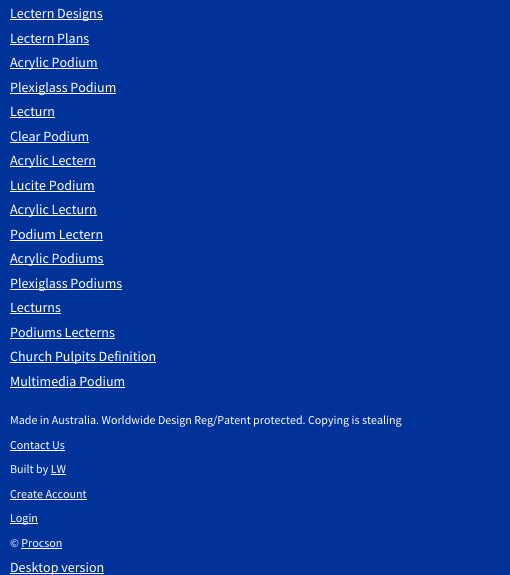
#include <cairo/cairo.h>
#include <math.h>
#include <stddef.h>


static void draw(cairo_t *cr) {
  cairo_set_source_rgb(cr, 0, 51 / 255.0, 153 / 255.0);
  cairo_paint(cr);
  cairo_set_source_rgb(cr, 1, 1, 1);
  cairo_rectangle(cr, 10, 19, 93, 1);
  cairo_fill(cr);
  cairo_rectangle(cr, 10, 44, 79, 1);
  cairo_fill(cr);
  cairo_rectangle(cr, 10, 68, 88, 1);
  cairo_fill(cr);
  cairo_rectangle(cr, 10, 93, 106, 1);
  cairo_fill(cr);
  cairo_rectangle(cr, 10, 117, 45, 1);
  cairo_fill(cr);
  cairo_rectangle(cr, 10, 142, 79, 1);
  cairo_fill(cr);
  cairo_rectangle(cr, 10, 166, 86, 1);
  cairo_fill(cr);
  cairo_rectangle(cr, 10, 191, 85, 1);
  cairo_fill(cr);
  cairo_rectangle(cr, 10, 215, 87, 1);
  cairo_fill(cr);
  cairo_rectangle(cr, 10, 240, 93, 1);
  cairo_fill(cr);
  cairo_rectangle(cr, 10, 264, 94, 1);
  cairo_fill(cr);
  cairo_rectangle(cr, 10, 289, 112, 1);
  cairo_fill(cr);
  cairo_rectangle(cr, 10, 313, 51, 1);
  cairo_fill(cr);
  cairo_rectangle(cr, 10, 338, 105, 1);
  cairo_fill(cr);
  cairo_rectangle(cr, 10, 362, 146, 1);
  cairo_fill(cr);
  cairo_rectangle(cr, 10, 387, 115, 1);
  cairo_fill(cr);
  cairo_rectangle(cr, 10, 450, 55, 1);
  cairo_fill(cr);
  cairo_rectangle(cr, 51, 474, 15, 1);
  cairo_fill(cr);
  cairo_rectangle(cr, 10, 499, 77, 1);
  cairo_fill(cr);
  cairo_rectangle(cr, 10, 523, 28, 1);
  cairo_fill(cr);
  cairo_rectangle(cr, 21, 548, 41, 1);
  cairo_fill(cr);
  cairo_rectangle(cr, 10, 573, 94, 1);
  cairo_fill(cr);
  cairo_select_font_face(cr, "Source Sans Pro", CAIRO_FONT_SLANT_NORMAL, CAIRO_FONT_WEIGHT_NORMAL);
  cairo_set_font_size(cr, 14);
  cairo_move_to(cr, 10, 18);
  cairo_show_text(cr, "Lectern Designs");
  cairo_move_to(cr, 10, 43);
  cairo_show_text(cr, "Lectern Plans");
  cairo_move_to(cr, 10, 67);
  cairo_show_text(cr, "Acrylic Podium");
  cairo_move_to(cr, 10, 92);
  cairo_show_text(cr, "Plexiglass Podium");
  cairo_move_to(cr, 10, 116);
  cairo_show_text(cr, "Lecturn");
  cairo_move_to(cr, 10, 141);
  cairo_show_text(cr, "Clear Podium");
  cairo_move_to(cr, 10, 165);
  cairo_show_text(cr, "Acrylic Lectern");
  cairo_move_to(cr, 10, 190);
  cairo_show_text(cr, "Lucite Podium");
  cairo_move_to(cr, 10, 214);
  cairo_show_text(cr, "Acrylic Lecturn");
  cairo_move_to(cr, 10, 239);
  cairo_show_text(cr, "Podium Lectern");
  cairo_move_to(cr, 10, 263);
  cairo_show_text(cr, "Acrylic Podiums");
  cairo_move_to(cr, 10, 288);
  cairo_show_text(cr, "Plexiglass Podiums");
  cairo_move_to(cr, 10, 312);
  cairo_show_text(cr, "Lecturns");
  cairo_move_to(cr, 10, 337);
  cairo_show_text(cr, "Podiums Lecterns");
  cairo_move_to(cr, 10, 361);
  cairo_show_text(cr, "Church Pulpits Definition");
  cairo_move_to(cr, 10, 386);
  cairo_show_text(cr, "Multimedia Podium");
  cairo_set_font_size(cr, 12);
  cairo_move_to(cr, 10, 424);
  cairo_show_text(cr, "Made in Australia. Worldwide Design Reg/Patent protected. Copying is stealing");
  cairo_move_to(cr, 10, 449);
  cairo_show_text(cr, "Contact Us");
  cairo_move_to(cr, 10, 473);
  cairo_show_text(cr, "Built by LW");
  cairo_move_to(cr, 10, 498);
  cairo_show_text(cr, "Create Account");
  cairo_move_to(cr, 10, 522);
  cairo_show_text(cr, "Login");
  cairo_move_to(cr, 10, 547);
  cairo_show_text(cr, "© Procson");
  cairo_set_font_size(cr, 14);
  cairo_move_to(cr, 10, 572);
  cairo_show_text(cr, "Desktop version");
}

int main(void) {
  cairo_surface_t *surface = cairo_image_surface_create(CAIRO_FORMAT_RGB24, 510, 575);
  cairo_t *cr = cairo_create(surface);
  cairo_font_options_t *options = cairo_font_options_create();
  cairo_font_options_set_hint_metrics(options, CAIRO_HINT_METRICS_OFF);
  cairo_font_options_set_hint_style(options, CAIRO_HINT_STYLE_NONE);
  cairo_set_font_options(cr, options);
  cairo_set_miter_limit(cr, 4);
  draw(cr);
  cairo_surface_write_to_png(surface, "out.png");
  cairo_font_options_destroy(options);
  cairo_destroy(cr);
  cairo_surface_destroy(surface);
  return 0;
}
